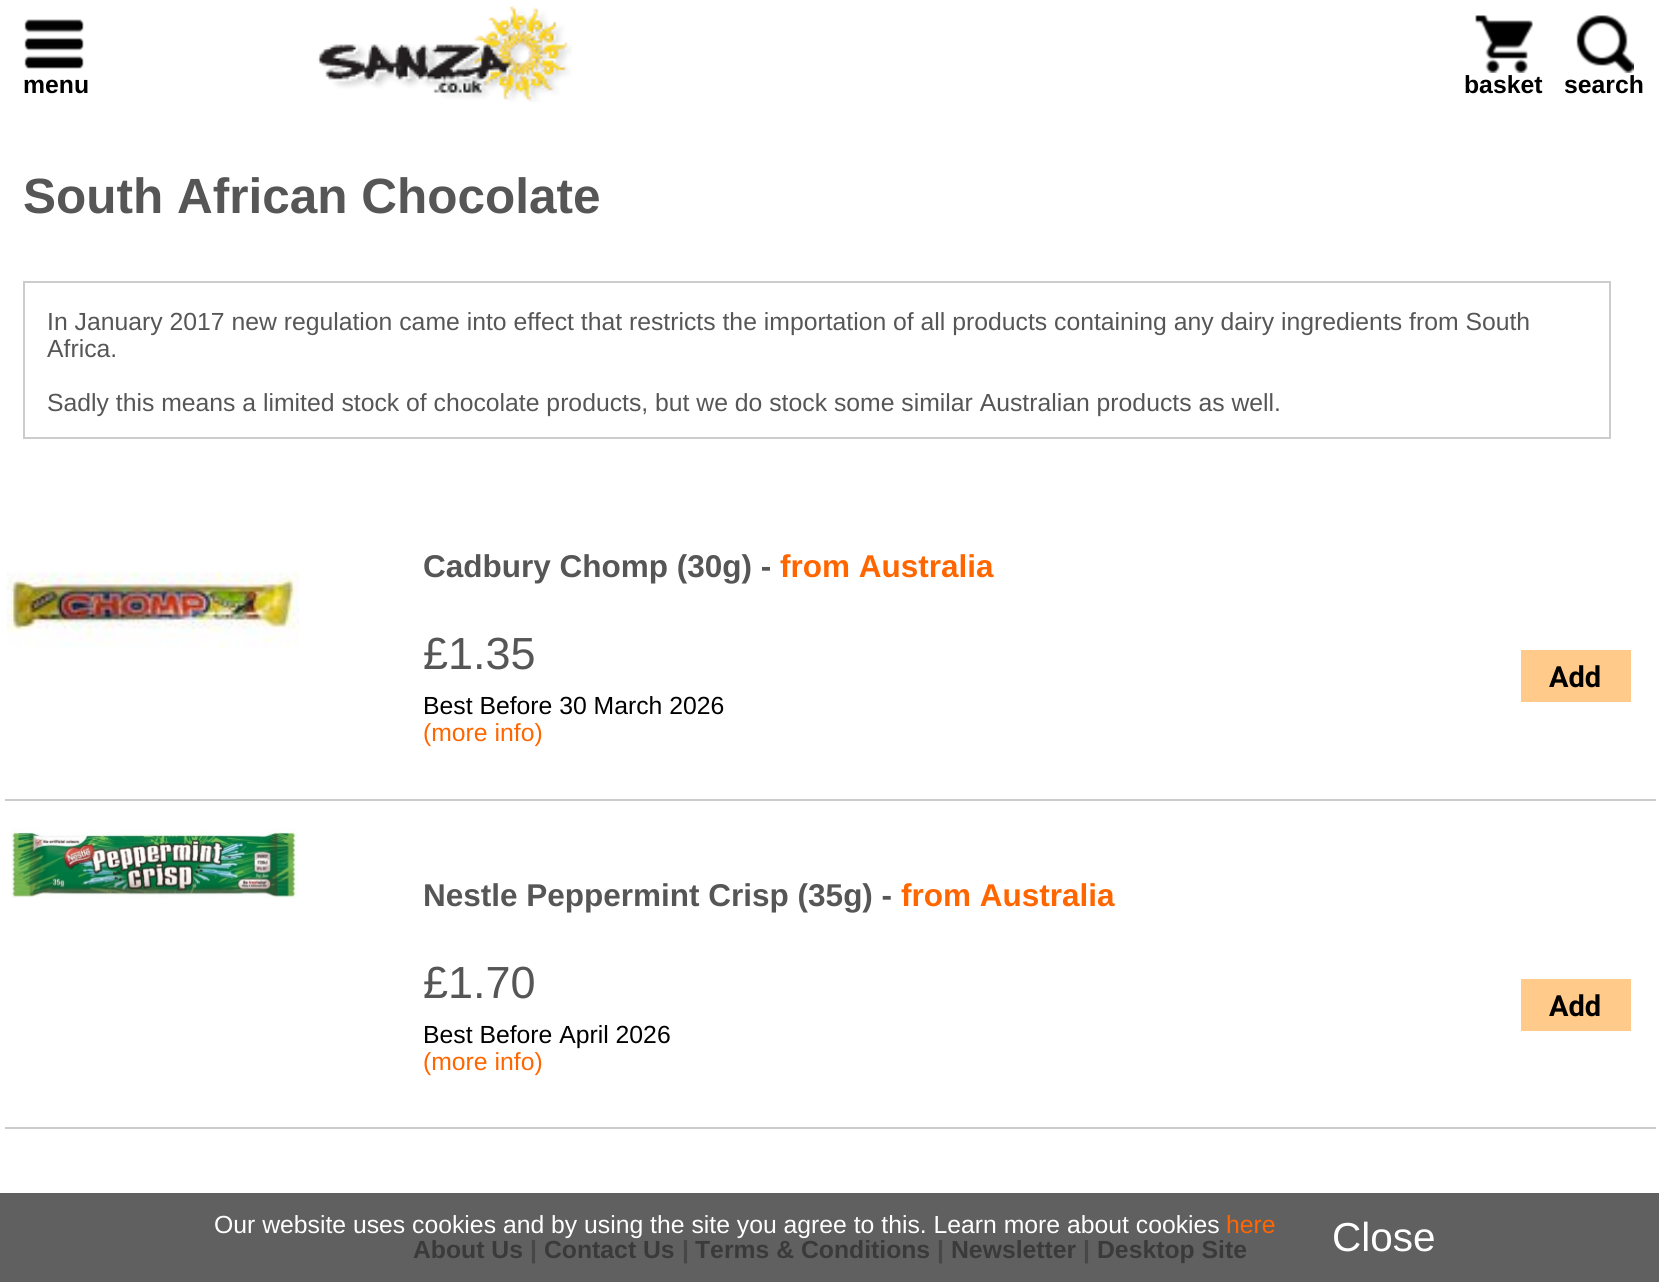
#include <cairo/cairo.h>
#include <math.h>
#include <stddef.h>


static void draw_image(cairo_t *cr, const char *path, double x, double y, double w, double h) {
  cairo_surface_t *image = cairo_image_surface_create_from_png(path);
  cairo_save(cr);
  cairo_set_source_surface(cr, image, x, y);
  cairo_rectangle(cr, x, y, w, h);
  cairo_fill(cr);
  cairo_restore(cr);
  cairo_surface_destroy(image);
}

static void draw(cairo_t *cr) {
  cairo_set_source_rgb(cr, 1, 1, 1);
  cairo_paint(cr);
  cairo_set_source_rgb(cr, 96 / 255.0, 96 / 255.0, 96 / 255.0);
  cairo_rectangle(cr, 0, 1193, 1659, 89);
  cairo_fill(cr);
  draw_image(cr, "images/1.png", 24, 19, 60, 50);
  draw_image(cr, "images/2.png", 317, 6, 255, 96);
  draw_image(cr, "images/3.png", 1475, 15, 58, 58);
  draw_image(cr, "images/4.png", 1576, 15, 58, 58);
  cairo_rectangle(cr, 24, 282, 1586, 156);
  cairo_set_source_rgb(cr, 204 / 255.0, 204 / 255.0, 204 / 255.0);
  cairo_stroke(cr);
  draw_image(cr, "images/5.png", 6, 571, 294, 77);
  cairo_set_source_rgb(cr, 1, 202 / 255.0, 138 / 255.0);
  cairo_rectangle(cr, 1521, 650, 110, 52);
  cairo_fill(cr);
  cairo_set_source_rgb(cr, 204 / 255.0, 204 / 255.0, 204 / 255.0);
  cairo_rectangle(cr, 5, 799, 1651, 2);
  cairo_fill(cr);
  draw_image(cr, "images/6.png", 10, 828, 289, 71);
  cairo_set_source_rgb(cr, 1, 202 / 255.0, 138 / 255.0);
  cairo_rectangle(cr, 1521, 979, 110, 52);
  cairo_fill(cr);
  cairo_set_source_rgb(cr, 204 / 255.0, 204 / 255.0, 204 / 255.0);
  cairo_rectangle(cr, 5, 1127, 1651, 2);
  cairo_fill(cr);
  cairo_select_font_face(cr, "Liberation Sans", CAIRO_FONT_SLANT_NORMAL, CAIRO_FONT_WEIGHT_BOLD);
  cairo_set_font_size(cr, 24.75);
  cairo_set_source_rgb(cr, 0, 0, 0);
  cairo_move_to(cr, 23, 93);
  cairo_show_text(cr, "menu");
  cairo_move_to(cr, 1464, 93);
  cairo_show_text(cr, "basket");
  cairo_move_to(cr, 1564, 93);
  cairo_show_text(cr, "search");
  cairo_set_font_size(cr, 49.5);
  cairo_set_source_rgb(cr, 86 / 255.0, 86 / 255.0, 86 / 255.0);
  cairo_move_to(cr, 23, 213);
  cairo_show_text(cr, "South African Chocolate");
  cairo_select_font_face(cr, "Liberation Sans", CAIRO_FONT_SLANT_NORMAL, CAIRO_FONT_WEIGHT_NORMAL);
  cairo_set_font_size(cr, 24.75);
  cairo_move_to(cr, 47, 330);
  cairo_show_text(cr, "In January 2017 new regulation came into effect that restricts the importation of all products containing any dairy ingredients from South");
  cairo_move_to(cr, 47, 357);
  cairo_show_text(cr, "Africa.");
  cairo_move_to(cr, 47, 411);
  cairo_show_text(cr, "Sadly this means a limited stock of chocolate products, but we do stock some similar Australian products as well.");
  cairo_select_font_face(cr, "Liberation Sans", CAIRO_FONT_SLANT_NORMAL, CAIRO_FONT_WEIGHT_BOLD);
  cairo_set_font_size(cr, 31.5);
  cairo_move_to(cr, 423, 577);
  cairo_show_text(cr, "Cadbury Chomp (30g) -");
  cairo_set_source_rgb(cr, 1, 102 / 255.0, 0);
  cairo_move_to(cr, 780, 577);
  cairo_show_text(cr, "from Australia");
  cairo_select_font_face(cr, "Liberation Sans", CAIRO_FONT_SLANT_NORMAL, CAIRO_FONT_WEIGHT_NORMAL);
  cairo_set_font_size(cr, 45);
  cairo_set_source_rgb(cr, 86 / 255.0, 86 / 255.0, 86 / 255.0);
  cairo_move_to(cr, 423, 669);
  cairo_show_text(cr, "£1.35");
  cairo_set_font_size(cr, 24.75);
  cairo_set_source_rgb(cr, 0, 0, 0);
  cairo_move_to(cr, 423, 714);
  cairo_show_text(cr, "Best Before 30 March 2026");
  cairo_set_source_rgb(cr, 1, 102 / 255.0, 0);
  cairo_move_to(cr, 423, 741);
  cairo_show_text(cr, "(more info)");
  cairo_select_font_face(cr, "Roboto", CAIRO_FONT_SLANT_NORMAL, CAIRO_FONT_WEIGHT_BOLD);
  cairo_set_font_size(cr, 29);
  cairo_set_source_rgb(cr, 0, 0, 0);
  cairo_move_to(cr, 1549, 687);
  cairo_show_text(cr, "Add");
  cairo_select_font_face(cr, "Liberation Sans", CAIRO_FONT_SLANT_NORMAL, CAIRO_FONT_WEIGHT_BOLD);
  cairo_set_font_size(cr, 31.5);
  cairo_set_source_rgb(cr, 86 / 255.0, 86 / 255.0, 86 / 255.0);
  cairo_move_to(cr, 423, 906);
  cairo_show_text(cr, "Nestle Peppermint Crisp (35g) -");
  cairo_set_source_rgb(cr, 1, 102 / 255.0, 0);
  cairo_move_to(cr, 901, 906);
  cairo_show_text(cr, "from Australia");
  cairo_select_font_face(cr, "Liberation Sans", CAIRO_FONT_SLANT_NORMAL, CAIRO_FONT_WEIGHT_NORMAL);
  cairo_set_font_size(cr, 45);
  cairo_set_source_rgb(cr, 86 / 255.0, 86 / 255.0, 86 / 255.0);
  cairo_move_to(cr, 423, 998);
  cairo_show_text(cr, "£1.70");
  cairo_set_font_size(cr, 24.75);
  cairo_set_source_rgb(cr, 0, 0, 0);
  cairo_move_to(cr, 423, 1043);
  cairo_show_text(cr, "Best Before April 2026");
  cairo_set_source_rgb(cr, 1, 102 / 255.0, 0);
  cairo_move_to(cr, 423, 1070);
  cairo_show_text(cr, "(more info)");
  cairo_select_font_face(cr, "Roboto", CAIRO_FONT_SLANT_NORMAL, CAIRO_FONT_WEIGHT_BOLD);
  cairo_set_font_size(cr, 29);
  cairo_set_source_rgb(cr, 0, 0, 0);
  cairo_move_to(cr, 1549, 1016);
  cairo_show_text(cr, "Add");
  cairo_select_font_face(cr, "Liberation Sans", CAIRO_FONT_SLANT_NORMAL, CAIRO_FONT_WEIGHT_BOLD);
  cairo_set_font_size(cr, 24.75);
  cairo_set_source_rgb(cr, 58 / 255.0, 58 / 255.0, 58 / 255.0);
  cairo_move_to(cr, 413, 1258);
  cairo_show_text(cr, "About Us");
  cairo_set_source_rgb(cr, 71 / 255.0, 71 / 255.0, 71 / 255.0);
  cairo_move_to(cr, 530, 1258);
  cairo_show_text(cr, "|");
  cairo_set_source_rgb(cr, 58 / 255.0, 58 / 255.0, 58 / 255.0);
  cairo_move_to(cr, 544, 1258);
  cairo_show_text(cr, "Contact Us");
  cairo_set_source_rgb(cr, 71 / 255.0, 71 / 255.0, 71 / 255.0);
  cairo_move_to(cr, 682, 1258);
  cairo_show_text(cr, "|");
  cairo_set_source_rgb(cr, 58 / 255.0, 58 / 255.0, 58 / 255.0);
  cairo_move_to(cr, 695, 1258);
  cairo_show_text(cr, "Terms & Conditions");
  cairo_set_source_rgb(cr, 71 / 255.0, 71 / 255.0, 71 / 255.0);
  cairo_move_to(cr, 937, 1258);
  cairo_show_text(cr, "|");
  cairo_set_source_rgb(cr, 58 / 255.0, 58 / 255.0, 58 / 255.0);
  cairo_move_to(cr, 951, 1258);
  cairo_show_text(cr, "Newsletter");
  cairo_set_source_rgb(cr, 71 / 255.0, 71 / 255.0, 71 / 255.0);
  cairo_move_to(cr, 1083, 1258);
  cairo_show_text(cr, "|");
  cairo_set_source_rgb(cr, 58 / 255.0, 58 / 255.0, 58 / 255.0);
  cairo_move_to(cr, 1097, 1258);
  cairo_show_text(cr, "Desktop Site");
  cairo_select_font_face(cr, "Liberation Sans", CAIRO_FONT_SLANT_NORMAL, CAIRO_FONT_WEIGHT_NORMAL);
  cairo_set_source_rgb(cr, 1, 1, 1);
  cairo_move_to(cr, 214, 1233);
  cairo_show_text(cr, "Our website uses cookies and by using the site you agree to this. Learn more about cookies");
  cairo_set_source_rgb(cr, 1, 102 / 255.0, 0);
  cairo_move_to(cr, 1226, 1233);
  cairo_show_text(cr, "here");
  cairo_set_font_size(cr, 40.5);
  cairo_set_source_rgb(cr, 1, 1, 1);
  cairo_move_to(cr, 1332, 1251);
  cairo_show_text(cr, "Close");
}

int main(void) {
  cairo_surface_t *surface = cairo_image_surface_create(CAIRO_FORMAT_RGB24, 1659, 1282);
  cairo_t *cr = cairo_create(surface);
  cairo_font_options_t *options = cairo_font_options_create();
  cairo_font_options_set_hint_metrics(options, CAIRO_HINT_METRICS_OFF);
  cairo_font_options_set_hint_style(options, CAIRO_HINT_STYLE_NONE);
  cairo_set_font_options(cr, options);
  cairo_set_miter_limit(cr, 4);
  draw(cr);
  cairo_surface_write_to_png(surface, "out.png");
  cairo_font_options_destroy(options);
  cairo_destroy(cr);
  cairo_surface_destroy(surface);
  return 0;
}
